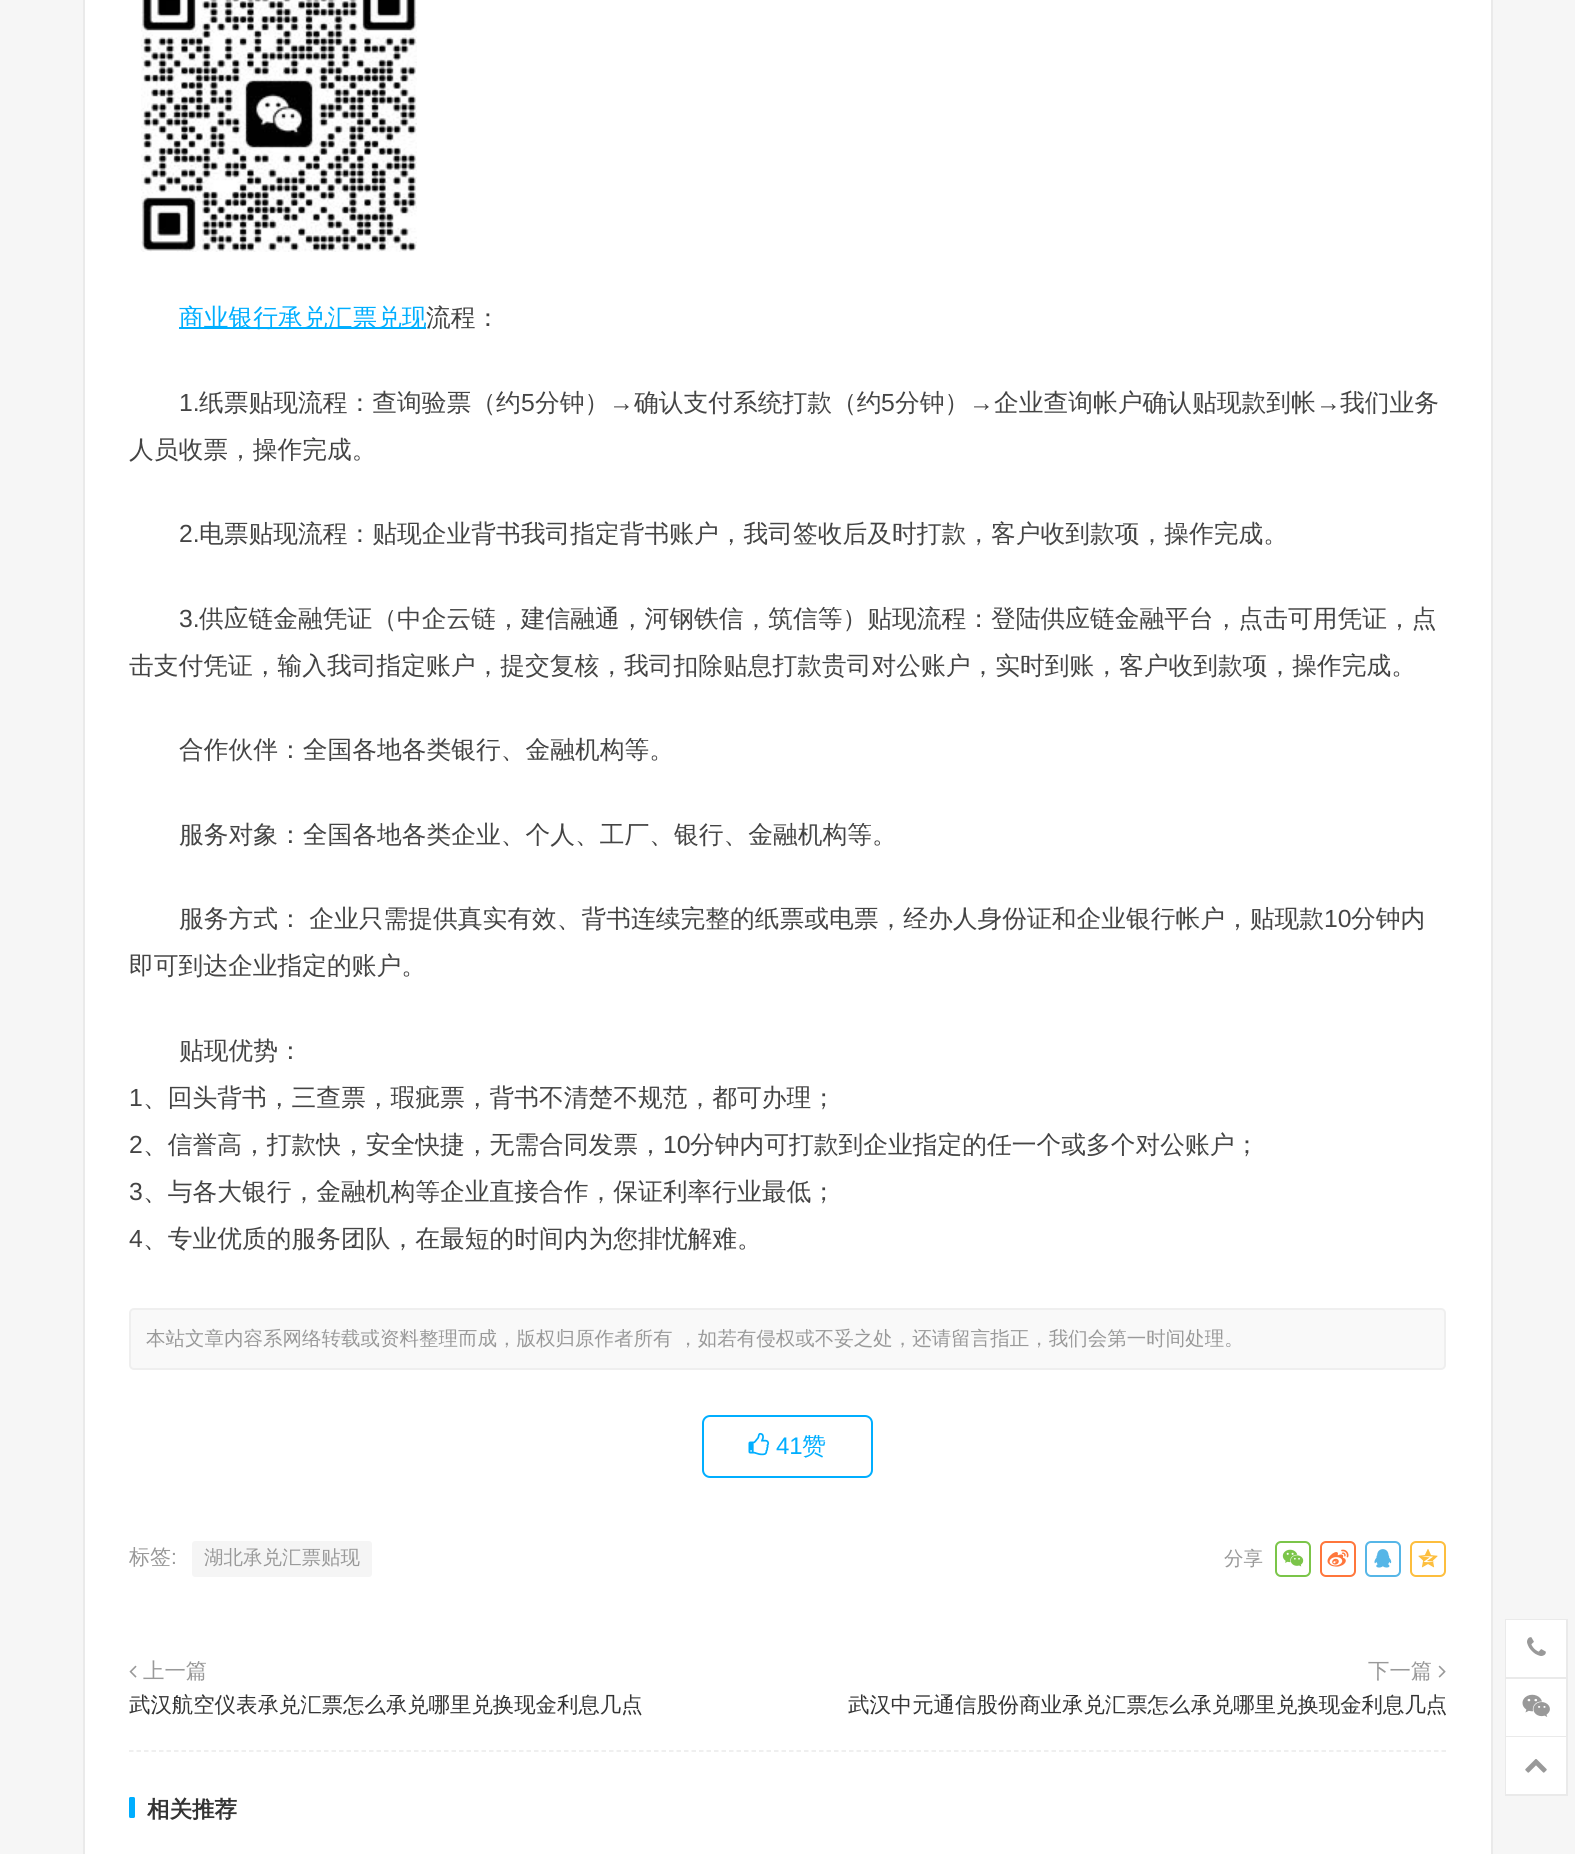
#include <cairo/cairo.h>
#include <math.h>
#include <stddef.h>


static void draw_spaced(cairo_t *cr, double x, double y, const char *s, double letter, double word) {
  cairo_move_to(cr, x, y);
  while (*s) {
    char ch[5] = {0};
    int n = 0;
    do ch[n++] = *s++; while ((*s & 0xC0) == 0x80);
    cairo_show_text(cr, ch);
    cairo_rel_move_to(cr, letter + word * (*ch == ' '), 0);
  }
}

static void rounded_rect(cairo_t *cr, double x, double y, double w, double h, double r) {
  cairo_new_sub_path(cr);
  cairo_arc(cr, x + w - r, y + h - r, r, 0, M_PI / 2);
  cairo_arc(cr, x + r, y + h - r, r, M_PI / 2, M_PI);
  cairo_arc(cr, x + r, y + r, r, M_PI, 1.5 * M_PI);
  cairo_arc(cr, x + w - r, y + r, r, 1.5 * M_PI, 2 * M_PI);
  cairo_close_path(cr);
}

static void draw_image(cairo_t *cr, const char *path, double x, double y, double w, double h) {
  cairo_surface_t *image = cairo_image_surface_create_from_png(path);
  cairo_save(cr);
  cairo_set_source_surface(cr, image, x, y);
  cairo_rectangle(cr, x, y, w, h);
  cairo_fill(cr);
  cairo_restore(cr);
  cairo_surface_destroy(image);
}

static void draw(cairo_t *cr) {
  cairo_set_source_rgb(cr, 246 / 255.0, 246 / 255.0, 246 / 255.0);
  cairo_paint(cr);
  cairo_set_source_rgb(cr, 1, 1, 1);
  cairo_rectangle(cr, 84, -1, 1408, 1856);
  cairo_fill_preserve(cr);
  cairo_set_source_rgb(cr, 234 / 255.0, 234 / 255.0, 234 / 255.0);
  cairo_stroke(cr);
  draw_image(cr, "images/1.png", 141, 0, 276, 252);
  cairo_set_source_rgb(cr, 0, 174 / 255.0, 1);
  cairo_rectangle(cr, 179, 327, 247, 2);
  cairo_fill(cr);
  cairo_set_source_rgb(cr, 249 / 255.0, 249 / 255.0, 249 / 255.0);
  rounded_rect(cr, 130, 1309, 1315, 60, 4);
  cairo_fill_preserve(cr);
  cairo_set_source_rgb(cr, 239 / 255.0, 239 / 255.0, 239 / 255.0);
  cairo_stroke(cr);
  rounded_rect(cr, 703, 1416, 169, 61, 7);
  cairo_set_source_rgb(cr, 0, 174 / 255.0, 1);
  cairo_stroke(cr);
  draw_image(cr, "images/2.png", 748, 1432, 22, 24);
  cairo_set_source_rgb(cr, 245 / 255.0, 245 / 255.0, 245 / 255.0);
  rounded_rect(cr, 192, 1541, 180, 36, 3);
  cairo_fill(cr);
  rounded_rect(cr, 1276, 1542, 34, 34, 5);
  cairo_set_source_rgb(cr, 123 / 255.0, 197 / 255.0, 73 / 255.0);
  cairo_stroke(cr);
  draw_image(cr, "images/3.png", 1282, 1549, 22, 18);
  rounded_rect(cr, 1321, 1542, 34, 34, 5);
  cairo_set_source_rgb(cr, 1, 118 / 255.0, 59 / 255.0);
  cairo_stroke(cr);
  draw_image(cr, "images/4.png", 1327, 1549, 22, 18);
  rounded_rect(cr, 1366, 1542, 34, 34, 5);
  cairo_set_source_rgb(cr, 86 / 255.0, 182 / 255.0, 231 / 255.0);
  cairo_stroke(cr);
  draw_image(cr, "images/5.png", 1374, 1549, 18, 19);
  rounded_rect(cr, 1411, 1542, 34, 34, 5);
  cairo_set_source_rgb(cr, 253 / 255.0, 190 / 255.0, 61 / 255.0);
  cairo_stroke(cr);
  draw_image(cr, "images/6.png", 1418, 1549, 20, 19);
  draw_image(cr, "images/7.png", 129, 1665, 8, 13);
  draw_image(cr, "images/8.png", 1438, 1665, 8, 13);
  cairo_new_path(cr);
  cairo_move_to(cr, 129, 1751);
  cairo_line_to(cr, 1446, 1751);
  cairo_set_source_rgb(cr, 234 / 255.0, 234 / 255.0, 234 / 255.0);
  cairo_set_line_width(cr, 1.5);
  cairo_set_dash(cr, (double[]){4.5, 3}, 2, 0);
  cairo_stroke(cr);
  cairo_set_source_rgb(cr, 0, 174 / 255.0, 1);
  rounded_rect(cr, 129, 1797, 6, 21, 1.5);
  cairo_fill(cr);
  cairo_rectangle(cr, 1506, 1620, 61, 58);
  cairo_set_source_rgb(cr, 234 / 255.0, 234 / 255.0, 234 / 255.0);
  cairo_set_line_width(cr, 2);
  cairo_set_dash(cr, NULL, 0, 0);
  cairo_stroke(cr);
  cairo_set_source_rgb(cr, 1, 1, 1);
  cairo_rectangle(cr, 1506, 1620, 60, 57);
  cairo_fill(cr);
  draw_image(cr, "images/9.png", 1527, 1637, 19, 19);
  cairo_rectangle(cr, 1506, 1737, 61, 58);
  cairo_set_source_rgb(cr, 234 / 255.0, 234 / 255.0, 234 / 255.0);
  cairo_stroke(cr);
  cairo_rectangle(cr, 1506, 1678, 61, 58);
  cairo_stroke(cr);
  cairo_set_source_rgb(cr, 1, 1, 1);
  cairo_rectangle(cr, 1506, 1679, 60, 57);
  cairo_fill(cr);
  draw_image(cr, "images/10.png", 1522, 1694, 28, 23);
  cairo_rectangle(cr, 1506, 1737, 60, 57);
  cairo_fill(cr);
  draw_image(cr, "images/11.png", 1525, 1759, 22, 14);
  cairo_select_font_face(cr, "WenQuanYi Zen Hei Medium", CAIRO_FONT_SLANT_NORMAL, CAIRO_FONT_WEIGHT_NORMAL);
  cairo_set_font_size(cr, 24.75);
  cairo_set_source_rgb(cr, 0, 174 / 255.0, 1);
  cairo_move_to(cr, 179, 326);
  cairo_show_text(cr, "商业银行承兑汇票兑现");
  cairo_set_source_rgb(cr, 68 / 255.0, 68 / 255.0, 68 / 255.0);
  cairo_move_to(cr, 426, 326);
  cairo_show_text(cr, "流程：");
  cairo_select_font_face(cr, "Liberation Sans", CAIRO_FONT_SLANT_NORMAL, CAIRO_FONT_WEIGHT_NORMAL);
  cairo_move_to(cr, 179, 411);
  cairo_show_text(cr, "1.");
  cairo_select_font_face(cr, "WenQuanYi Zen Hei Medium", CAIRO_FONT_SLANT_NORMAL, CAIRO_FONT_WEIGHT_NORMAL);
  cairo_move_to(cr, 199, 411);
  cairo_show_text(cr, "纸票贴现流程：查询验票（约");
  cairo_select_font_face(cr, "Liberation Sans", CAIRO_FONT_SLANT_NORMAL, CAIRO_FONT_WEIGHT_NORMAL);
  cairo_move_to(cr, 521, 411);
  cairo_show_text(cr, "5");
  cairo_select_font_face(cr, "WenQuanYi Zen Hei Medium", CAIRO_FONT_SLANT_NORMAL, CAIRO_FONT_WEIGHT_NORMAL);
  cairo_move_to(cr, 535, 411);
  cairo_show_text(cr, "分钟）");
  cairo_select_font_face(cr, "Liberation Sans", CAIRO_FONT_SLANT_NORMAL, CAIRO_FONT_WEIGHT_NORMAL);
  cairo_move_to(cr, 609, 411);
  cairo_show_text(cr, "→");
  cairo_select_font_face(cr, "WenQuanYi Zen Hei Medium", CAIRO_FONT_SLANT_NORMAL, CAIRO_FONT_WEIGHT_NORMAL);
  cairo_move_to(cr, 634, 411);
  cairo_show_text(cr, "确认支付系统打款（约");
  cairo_select_font_face(cr, "Liberation Sans", CAIRO_FONT_SLANT_NORMAL, CAIRO_FONT_WEIGHT_NORMAL);
  cairo_move_to(cr, 881, 411);
  cairo_show_text(cr, "5");
  cairo_select_font_face(cr, "WenQuanYi Zen Hei Medium", CAIRO_FONT_SLANT_NORMAL, CAIRO_FONT_WEIGHT_NORMAL);
  cairo_move_to(cr, 895, 411);
  cairo_show_text(cr, "分钟）");
  cairo_select_font_face(cr, "Liberation Sans", CAIRO_FONT_SLANT_NORMAL, CAIRO_FONT_WEIGHT_NORMAL);
  cairo_move_to(cr, 969, 411);
  cairo_show_text(cr, "→");
  cairo_select_font_face(cr, "WenQuanYi Zen Hei Medium", CAIRO_FONT_SLANT_NORMAL, CAIRO_FONT_WEIGHT_NORMAL);
  cairo_move_to(cr, 994, 411);
  cairo_show_text(cr, "企业查询帐户确认贴现款到帐");
  cairo_select_font_face(cr, "Liberation Sans", CAIRO_FONT_SLANT_NORMAL, CAIRO_FONT_WEIGHT_NORMAL);
  cairo_move_to(cr, 1316, 411);
  cairo_show_text(cr, "→");
  cairo_select_font_face(cr, "WenQuanYi Zen Hei Medium", CAIRO_FONT_SLANT_NORMAL, CAIRO_FONT_WEIGHT_NORMAL);
  cairo_move_to(cr, 1340, 411);
  cairo_show_text(cr, "我们业务");
  cairo_move_to(cr, 129, 458);
  cairo_show_text(cr, "人员收票，操作完成。");
  cairo_select_font_face(cr, "Liberation Sans", CAIRO_FONT_SLANT_NORMAL, CAIRO_FONT_WEIGHT_NORMAL);
  cairo_move_to(cr, 179, 542);
  cairo_show_text(cr, "2.");
  cairo_select_font_face(cr, "WenQuanYi Zen Hei Medium", CAIRO_FONT_SLANT_NORMAL, CAIRO_FONT_WEIGHT_NORMAL);
  cairo_move_to(cr, 199, 542);
  cairo_show_text(cr, "电票贴现流程：贴现企业背书我司指定背书账户，我司签收后及时打款，客户收到款项，操作完成。");
  cairo_select_font_face(cr, "Liberation Sans", CAIRO_FONT_SLANT_NORMAL, CAIRO_FONT_WEIGHT_NORMAL);
  cairo_move_to(cr, 179, 627);
  cairo_show_text(cr, "3.");
  cairo_select_font_face(cr, "WenQuanYi Zen Hei Medium", CAIRO_FONT_SLANT_NORMAL, CAIRO_FONT_WEIGHT_NORMAL);
  cairo_move_to(cr, 199, 627);
  cairo_show_text(cr, "供应链金融凭证（中企云链，建信融通，河钢铁信，筑信等）贴现流程：登陆供应链金融平台，点击可用凭证，点");
  cairo_move_to(cr, 129, 674);
  cairo_show_text(cr, "击支付凭证，输入我司指定账户，提交复核，我司扣除贴息打款贵司对公账户，实时到账，客户收到款项，操作完成。");
  cairo_move_to(cr, 179, 758);
  cairo_show_text(cr, "合作伙伴：全国各地各类银行、金融机构等。");
  cairo_move_to(cr, 179, 843);
  cairo_show_text(cr, "服务对象：全国各地各类企业、个人、工厂、银行、金融机构等。");
  draw_spaced(cr, 179, 927, "服务方式： 企业只需提供真实有效、背书连续完整的纸票或电票，经办人身份证和企业银行帐户，贴现款", 0, -1);
  cairo_select_font_face(cr, "Liberation Sans", CAIRO_FONT_SLANT_NORMAL, CAIRO_FONT_WEIGHT_NORMAL);
  cairo_move_to(cr, 1324, 927);
  cairo_show_text(cr, "10");
  cairo_select_font_face(cr, "WenQuanYi Zen Hei Medium", CAIRO_FONT_SLANT_NORMAL, CAIRO_FONT_WEIGHT_NORMAL);
  cairo_move_to(cr, 1351, 927);
  cairo_show_text(cr, "分钟内");
  cairo_move_to(cr, 129, 974);
  cairo_show_text(cr, "即可到达企业指定的账户。");
  cairo_move_to(cr, 179, 1059);
  cairo_show_text(cr, "贴现优势：");
  cairo_select_font_face(cr, "Liberation Sans", CAIRO_FONT_SLANT_NORMAL, CAIRO_FONT_WEIGHT_NORMAL);
  cairo_move_to(cr, 129, 1106);
  cairo_show_text(cr, "1");
  cairo_select_font_face(cr, "WenQuanYi Zen Hei Medium", CAIRO_FONT_SLANT_NORMAL, CAIRO_FONT_WEIGHT_NORMAL);
  cairo_move_to(cr, 143, 1106);
  cairo_show_text(cr, "、回头背书，三查票，瑕疵票，背书不清楚不规范，都可办理；");
  cairo_select_font_face(cr, "Liberation Sans", CAIRO_FONT_SLANT_NORMAL, CAIRO_FONT_WEIGHT_NORMAL);
  cairo_move_to(cr, 129, 1153);
  cairo_show_text(cr, "2");
  cairo_select_font_face(cr, "WenQuanYi Zen Hei Medium", CAIRO_FONT_SLANT_NORMAL, CAIRO_FONT_WEIGHT_NORMAL);
  cairo_move_to(cr, 143, 1153);
  cairo_show_text(cr, "、信誉高，打款快，安全快捷，无需合同发票，");
  cairo_select_font_face(cr, "Liberation Sans", CAIRO_FONT_SLANT_NORMAL, CAIRO_FONT_WEIGHT_NORMAL);
  cairo_move_to(cr, 663, 1153);
  cairo_show_text(cr, "10");
  cairo_select_font_face(cr, "WenQuanYi Zen Hei Medium", CAIRO_FONT_SLANT_NORMAL, CAIRO_FONT_WEIGHT_NORMAL);
  cairo_move_to(cr, 690, 1153);
  cairo_show_text(cr, "分钟内可打款到企业指定的任一个或多个对公账户；");
  cairo_select_font_face(cr, "Liberation Sans", CAIRO_FONT_SLANT_NORMAL, CAIRO_FONT_WEIGHT_NORMAL);
  cairo_move_to(cr, 129, 1200);
  cairo_show_text(cr, "3");
  cairo_select_font_face(cr, "WenQuanYi Zen Hei Medium", CAIRO_FONT_SLANT_NORMAL, CAIRO_FONT_WEIGHT_NORMAL);
  cairo_move_to(cr, 143, 1200);
  cairo_show_text(cr, "、与各大银行，金融机构等企业直接合作，保证利率行业最低；");
  cairo_select_font_face(cr, "Liberation Sans", CAIRO_FONT_SLANT_NORMAL, CAIRO_FONT_WEIGHT_NORMAL);
  cairo_move_to(cr, 129, 1247);
  cairo_show_text(cr, "4");
  cairo_select_font_face(cr, "WenQuanYi Zen Hei Medium", CAIRO_FONT_SLANT_NORMAL, CAIRO_FONT_WEIGHT_NORMAL);
  cairo_move_to(cr, 143, 1247);
  cairo_show_text(cr, "、专业优质的服务团队，在最短的时间内为您排忧解难。");
  cairo_set_font_size(cr, 19.5);
  cairo_set_source_rgb(cr, 153 / 255.0, 153 / 255.0, 153 / 255.0);
  cairo_move_to(cr, 146, 1345);
  cairo_show_text(cr, "本站文章内容系网络转载或资料整理而成，版权归原作者所有 ，如若有侵权或不妥之处，还请留言指正，我们会第一时间处理。");
  cairo_select_font_face(cr, "Liberation Sans", CAIRO_FONT_SLANT_NORMAL, CAIRO_FONT_WEIGHT_NORMAL);
  cairo_set_font_size(cr, 24);
  cairo_set_source_rgb(cr, 0, 174 / 255.0, 1);
  cairo_move_to(cr, 776, 1454);
  cairo_show_text(cr, "41");
  cairo_select_font_face(cr, "WenQuanYi Zen Hei Medium", CAIRO_FONT_SLANT_NORMAL, CAIRO_FONT_WEIGHT_NORMAL);
  cairo_move_to(cr, 802, 1454);
  cairo_show_text(cr, "赞");
  cairo_set_font_size(cr, 21);
  cairo_set_source_rgb(cr, 153 / 255.0, 153 / 255.0, 153 / 255.0);
  cairo_move_to(cr, 129, 1564);
  cairo_show_text(cr, "标签");
  cairo_select_font_face(cr, "Liberation Sans", CAIRO_FONT_SLANT_NORMAL, CAIRO_FONT_WEIGHT_NORMAL);
  cairo_move_to(cr, 171, 1564);
  cairo_show_text(cr, ":");
  cairo_select_font_face(cr, "WenQuanYi Zen Hei Medium", CAIRO_FONT_SLANT_NORMAL, CAIRO_FONT_WEIGHT_NORMAL);
  cairo_set_font_size(cr, 19.5);
  cairo_move_to(cr, 204, 1564);
  cairo_show_text(cr, "湖北承兑汇票贴现");
  cairo_move_to(cr, 1224, 1565);
  cairo_show_text(cr, "分享");
  cairo_set_font_size(cr, 21.4);
  cairo_move_to(cr, 143, 1678);
  cairo_show_text(cr, "上一篇");
  cairo_set_source_rgb(cr, 51 / 255.0, 51 / 255.0, 51 / 255.0);
  cairo_move_to(cr, 129, 1712);
  cairo_show_text(cr, "武汉航空仪表承兑汇票怎么承兑哪里兑换现金利息几点");
  cairo_set_source_rgb(cr, 153 / 255.0, 153 / 255.0, 153 / 255.0);
  cairo_move_to(cr, 1368, 1678);
  cairo_show_text(cr, "下一篇");
  cairo_set_source_rgb(cr, 51 / 255.0, 51 / 255.0, 51 / 255.0);
  cairo_move_to(cr, 848, 1712);
  cairo_show_text(cr, "武汉中元通信股份商业承兑汇票怎么承兑哪里兑换现金利息几点");
  cairo_select_font_face(cr, "WenQuanYi Zen Hei", CAIRO_FONT_SLANT_NORMAL, CAIRO_FONT_WEIGHT_BOLD);
  cairo_set_font_size(cr, 22.5);
  cairo_move_to(cr, 147, 1817);
  cairo_show_text(cr, "相关推荐");
}

int main(void) {
  cairo_surface_t *surface = cairo_image_surface_create(CAIRO_FORMAT_RGB24, 1575, 1854);
  cairo_t *cr = cairo_create(surface);
  cairo_font_options_t *options = cairo_font_options_create();
  cairo_font_options_set_hint_metrics(options, CAIRO_HINT_METRICS_OFF);
  cairo_font_options_set_hint_style(options, CAIRO_HINT_STYLE_NONE);
  cairo_set_font_options(cr, options);
  cairo_set_miter_limit(cr, 4);
  draw(cr);
  cairo_surface_write_to_png(surface, "out.png");
  cairo_font_options_destroy(options);
  cairo_destroy(cr);
  cairo_surface_destroy(surface);
  return 0;
}
